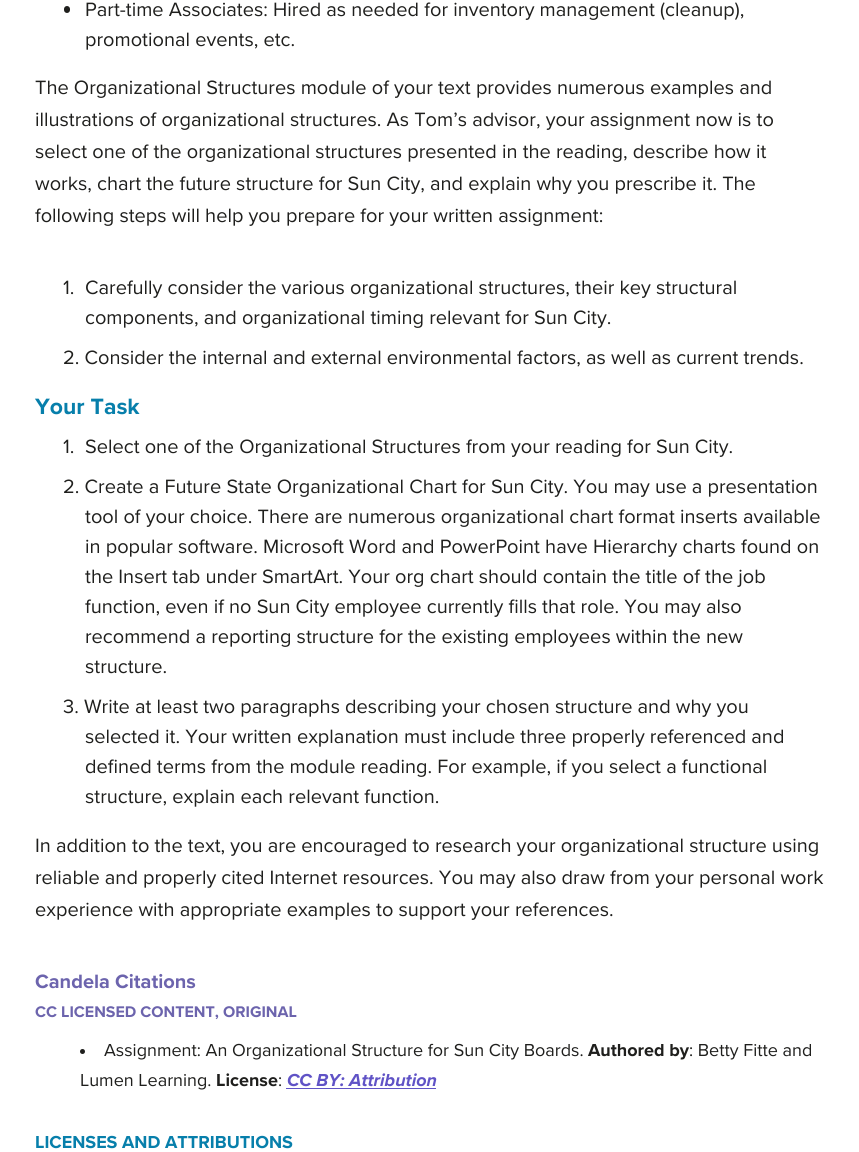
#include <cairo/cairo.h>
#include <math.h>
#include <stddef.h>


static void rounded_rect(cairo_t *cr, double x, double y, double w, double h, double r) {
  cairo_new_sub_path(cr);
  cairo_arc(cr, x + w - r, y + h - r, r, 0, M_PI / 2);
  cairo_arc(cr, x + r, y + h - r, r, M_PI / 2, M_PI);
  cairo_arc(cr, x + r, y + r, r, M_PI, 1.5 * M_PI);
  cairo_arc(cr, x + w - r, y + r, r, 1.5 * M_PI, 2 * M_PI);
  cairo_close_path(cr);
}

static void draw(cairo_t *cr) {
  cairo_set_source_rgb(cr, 1, 1, 1);
  cairo_paint(cr);
  cairo_set_source_rgb(cr, 31 / 255.0, 31 / 255.0, 29 / 255.0);
  rounded_rect(cr, 64, 6, 6, 7, 3);
  cairo_fill(cr);
  cairo_arc(cr, 82.5, 1051.5, 2.5, 0, 2 * M_PI);
  cairo_fill(cr);
  cairo_set_source_rgb(cr, 96 / 255.0, 83 / 255.0, 198 / 255.0);
  cairo_rectangle(cr, 286, 1088, 150, 1);
  cairo_fill(cr);
  cairo_select_font_face(cr, "Proxima Nova", CAIRO_FONT_SLANT_NORMAL, CAIRO_FONT_WEIGHT_NORMAL);
  cairo_set_font_size(cr, 20);
  cairo_set_source_rgb(cr, 31 / 255.0, 31 / 255.0, 29 / 255.0);
  cairo_move_to(cr, 85, 16);
  cairo_show_text(cr, "Part-time Associates: Hired as needed for inventory management (cleanup),");
  cairo_move_to(cr, 85, 46);
  cairo_show_text(cr, "promotional events, etc.");
  cairo_move_to(cr, 35, 94);
  cairo_show_text(cr, "The Organizational Structures module of your text provides numerous examples and");
  cairo_move_to(cr, 35, 126);
  cairo_show_text(cr, "illustrations of organizational structures. As Tom’s advisor, your assignment now is to");
  cairo_move_to(cr, 35, 158);
  cairo_show_text(cr, "select one of the organizational structures presented in the reading, describe how it");
  cairo_move_to(cr, 35, 190);
  cairo_show_text(cr, "works, chart the future structure for Sun City, and explain why you prescribe it. The");
  cairo_move_to(cr, 35, 222);
  cairo_show_text(cr, "following steps will help you prepare for your written assignment:");
  cairo_move_to(cr, 63, 294);
  cairo_show_text(cr, "1.");
  cairo_move_to(cr, 85, 294);
  cairo_show_text(cr, "Carefully consider the various organizational structures, their key structural");
  cairo_move_to(cr, 85, 324);
  cairo_show_text(cr, "components, and organizational timing relevant for Sun City.");
  cairo_move_to(cr, 63, 364);
  cairo_show_text(cr, "2. Consider the internal and external environmental factors, as well as current trends.");
  cairo_select_font_face(cr, "Proxima Nova", CAIRO_FONT_SLANT_NORMAL, CAIRO_FONT_WEIGHT_BOLD);
  cairo_set_font_size(cr, 23);
  cairo_set_source_rgb(cr, 7 / 255.0, 127 / 255.0, 171 / 255.0);
  cairo_move_to(cr, 35, 414);
  cairo_show_text(cr, "Your Task");
  cairo_select_font_face(cr, "Proxima Nova", CAIRO_FONT_SLANT_NORMAL, CAIRO_FONT_WEIGHT_NORMAL);
  cairo_set_font_size(cr, 20);
  cairo_set_source_rgb(cr, 31 / 255.0, 31 / 255.0, 29 / 255.0);
  cairo_move_to(cr, 63, 453);
  cairo_show_text(cr, "1.");
  cairo_move_to(cr, 85, 453);
  cairo_show_text(cr, "Select one of the Organizational Structures from your reading for Sun City.");
  cairo_move_to(cr, 63, 493);
  cairo_show_text(cr, "2. Create a Future State Organizational Chart for Sun City. You may use a presentation");
  cairo_move_to(cr, 85, 523);
  cairo_show_text(cr, "tool of your choice. There are numerous organizational chart format inserts available");
  cairo_move_to(cr, 85, 553);
  cairo_show_text(cr, "in popular software. Microsoft Word and PowerPoint have Hierarchy charts found on");
  cairo_move_to(cr, 85, 583);
  cairo_show_text(cr, "the Insert tab under SmartArt. Your org chart should contain the title of the job");
  cairo_move_to(cr, 85, 613);
  cairo_show_text(cr, "function, even if no Sun City employee currently fills that role. You may also");
  cairo_move_to(cr, 85, 643);
  cairo_show_text(cr, "recommend a reporting structure for the existing employees within the new");
  cairo_move_to(cr, 85, 673);
  cairo_show_text(cr, "structure.");
  cairo_move_to(cr, 63, 713);
  cairo_show_text(cr, "3. Write at least two paragraphs describing your chosen structure and why you");
  cairo_move_to(cr, 85, 743);
  cairo_show_text(cr, "selected it. Your written explanation must include three properly referenced and");
  cairo_move_to(cr, 85, 773);
  cairo_show_text(cr, "defined terms from the module reading. For example, if you select a functional");
  cairo_move_to(cr, 85, 803);
  cairo_show_text(cr, "structure, explain each relevant function.");
  cairo_move_to(cr, 35, 852);
  cairo_show_text(cr, "In addition to the text, you are encouraged to research your organizational structure using");
  cairo_move_to(cr, 35, 884);
  cairo_show_text(cr, "reliable and properly cited Internet resources. You may also draw from your personal work");
  cairo_move_to(cr, 35, 916);
  cairo_show_text(cr, "experience with appropriate examples to support your references.");
  cairo_select_font_face(cr, "Proxima Nova", CAIRO_FONT_SLANT_NORMAL, CAIRO_FONT_WEIGHT_BOLD);
  cairo_set_source_rgb(cr, 108 / 255.0, 100 / 255.0, 173 / 255.0);
  cairo_move_to(cr, 35, 988);
  cairo_show_text(cr, "Candela Citations");
  cairo_set_font_size(cr, 16);
  cairo_move_to(cr, 35, 1017);
  cairo_show_text(cr, "CC LICENSED CONTENT, ORIGINAL");
  cairo_select_font_face(cr, "Proxima Nova", CAIRO_FONT_SLANT_NORMAL, CAIRO_FONT_WEIGHT_NORMAL);
  cairo_set_font_size(cr, 18);
  cairo_set_source_rgb(cr, 31 / 255.0, 31 / 255.0, 29 / 255.0);
  cairo_move_to(cr, 104, 1056);
  cairo_show_text(cr, "Assignment: An Organizational Structure for Sun City Boards.");
  cairo_select_font_face(cr, "Proxima Nova", CAIRO_FONT_SLANT_NORMAL, CAIRO_FONT_WEIGHT_BOLD);
  cairo_move_to(cr, 588, 1056);
  cairo_show_text(cr, "Authored by");
  cairo_select_font_face(cr, "Proxima Nova", CAIRO_FONT_SLANT_NORMAL, CAIRO_FONT_WEIGHT_NORMAL);
  cairo_move_to(cr, 689, 1056);
  cairo_show_text(cr, ": Betty Fitte and");
  cairo_move_to(cr, 80, 1086);
  cairo_show_text(cr, "Lumen Learning.");
  cairo_select_font_face(cr, "Proxima Nova", CAIRO_FONT_SLANT_NORMAL, CAIRO_FONT_WEIGHT_BOLD);
  cairo_move_to(cr, 216, 1086);
  cairo_show_text(cr, "License");
  cairo_select_font_face(cr, "Proxima Nova", CAIRO_FONT_SLANT_NORMAL, CAIRO_FONT_WEIGHT_NORMAL);
  cairo_move_to(cr, 278, 1086);
  cairo_show_text(cr, ":");
  cairo_select_font_face(cr, "Proxima Nova", CAIRO_FONT_SLANT_ITALIC, CAIRO_FONT_WEIGHT_BOLD);
  cairo_set_source_rgb(cr, 96 / 255.0, 83 / 255.0, 198 / 255.0);
  cairo_move_to(cr, 287, 1086);
  cairo_show_text(cr, "CC BY: Attribution");
  cairo_select_font_face(cr, "Proxima Nova", CAIRO_FONT_SLANT_NORMAL, CAIRO_FONT_WEIGHT_BOLD);
  cairo_set_source_rgb(cr, 7 / 255.0, 127 / 255.0, 171 / 255.0);
  cairo_move_to(cr, 35, 1148);
  cairo_show_text(cr, "LICENSES AND ATTRIBUTIONS");
}

int main(void) {
  cairo_surface_t *surface = cairo_image_surface_create(CAIRO_FORMAT_RGB24, 859, 1152);
  cairo_t *cr = cairo_create(surface);
  cairo_font_options_t *options = cairo_font_options_create();
  cairo_font_options_set_hint_metrics(options, CAIRO_HINT_METRICS_OFF);
  cairo_font_options_set_hint_style(options, CAIRO_HINT_STYLE_NONE);
  cairo_set_font_options(cr, options);
  cairo_set_miter_limit(cr, 4);
  draw(cr);
  cairo_surface_write_to_png(surface, "out.png");
  cairo_font_options_destroy(options);
  cairo_destroy(cr);
  cairo_surface_destroy(surface);
  return 0;
}
